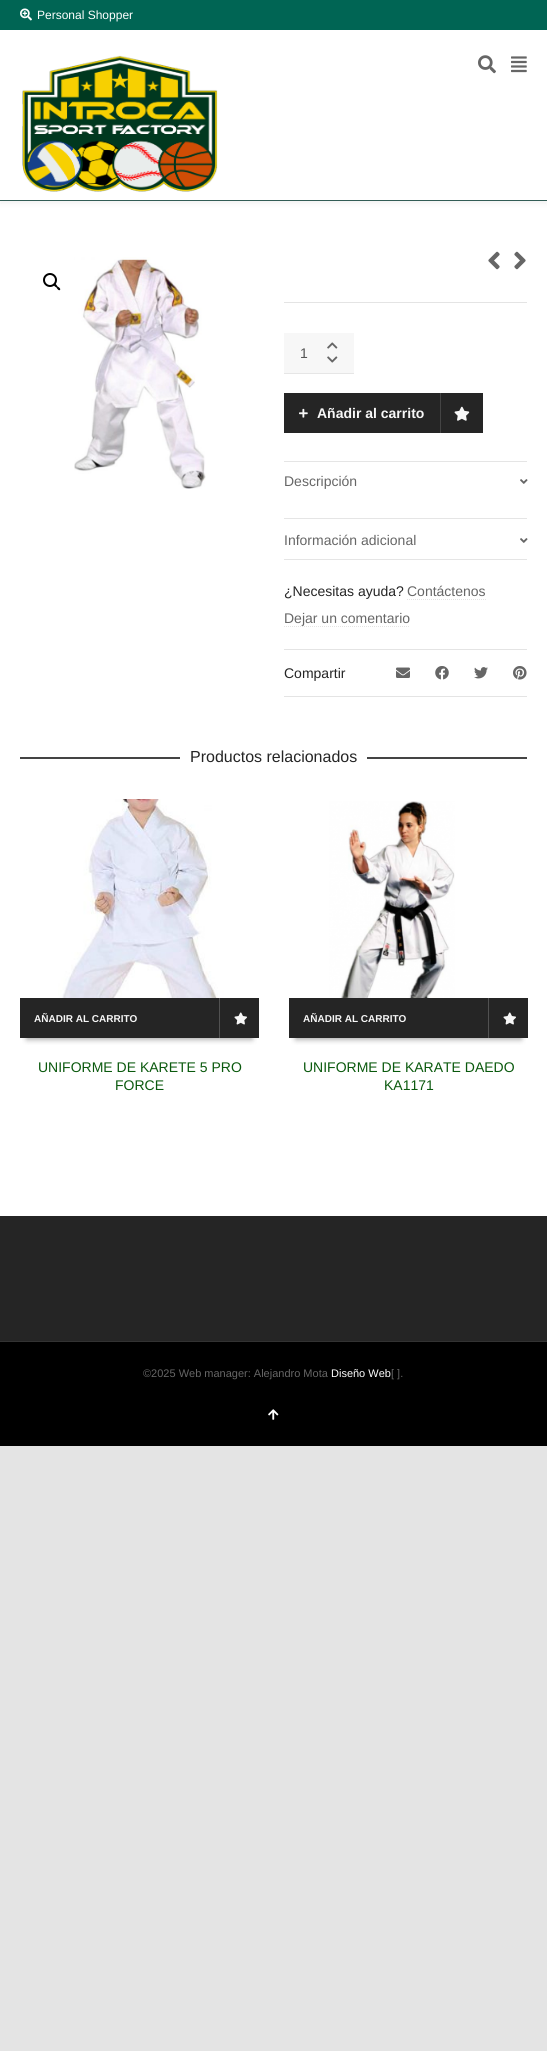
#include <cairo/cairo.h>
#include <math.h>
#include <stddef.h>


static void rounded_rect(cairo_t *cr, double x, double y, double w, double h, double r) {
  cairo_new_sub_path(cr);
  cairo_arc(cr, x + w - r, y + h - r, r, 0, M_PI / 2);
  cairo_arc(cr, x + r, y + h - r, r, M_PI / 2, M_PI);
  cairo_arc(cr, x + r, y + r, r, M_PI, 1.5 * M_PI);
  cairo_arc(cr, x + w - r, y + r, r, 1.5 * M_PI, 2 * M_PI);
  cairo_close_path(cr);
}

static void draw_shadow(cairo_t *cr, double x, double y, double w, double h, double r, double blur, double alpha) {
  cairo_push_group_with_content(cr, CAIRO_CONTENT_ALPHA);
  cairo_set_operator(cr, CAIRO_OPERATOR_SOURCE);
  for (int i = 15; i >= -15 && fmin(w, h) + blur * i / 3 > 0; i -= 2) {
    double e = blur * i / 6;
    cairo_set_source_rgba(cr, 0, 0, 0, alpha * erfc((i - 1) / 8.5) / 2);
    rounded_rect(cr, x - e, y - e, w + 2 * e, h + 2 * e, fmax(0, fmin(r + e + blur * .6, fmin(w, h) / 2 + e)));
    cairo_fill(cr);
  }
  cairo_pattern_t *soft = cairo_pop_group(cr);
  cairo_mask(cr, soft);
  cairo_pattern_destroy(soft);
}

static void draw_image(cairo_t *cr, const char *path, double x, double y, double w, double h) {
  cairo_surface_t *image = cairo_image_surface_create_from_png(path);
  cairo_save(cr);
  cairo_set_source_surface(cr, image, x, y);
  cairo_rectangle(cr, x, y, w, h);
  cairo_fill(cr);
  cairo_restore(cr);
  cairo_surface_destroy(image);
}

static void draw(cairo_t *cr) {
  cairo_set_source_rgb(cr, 228 / 255.0, 228 / 255.0, 228 / 255.0);
  cairo_paint(cr);
  cairo_set_source_rgb(cr, 1, 1, 1);
  cairo_rectangle(cr, 0, 201, 547, 1015);
  cairo_fill(cr);
  cairo_set_source_rgb(cr, 0, 0, 0);
  draw_shadow(cr, 0, 33, 547, 171, 0, 2.5, 0.05);
  cairo_set_source_rgb(cr, 0, 101 / 255.0, 84 / 255.0);
  cairo_rectangle(cr, 0, 0, 547, 30);
  cairo_fill(cr);
  draw_image(cr, "images/1.png", 20, 8, 12, 13);
  cairo_set_source_rgb(cr, 1, 1, 1);
  cairo_rectangle(cr, 0, 30, 547, 170);
  cairo_fill(cr);
  draw_image(cr, "images/2.png", 22, 55, 196, 137);
  draw_image(cr, "images/3.png", 478, 55, 18, 19);
  draw_image(cr, "images/4.png", 511, 56, 16, 17);
  cairo_set_source_rgb(cr, 50 / 255.0, 92 / 255.0, 85 / 255.0);
  cairo_rectangle(cr, 0, 200, 547, 1);
  cairo_fill(cr);
  cairo_arc(cr, 50, 280, 6, 0, 2 * M_PI);
  cairo_set_source_rgb(cr, 0, 0, 0);
  cairo_stroke(cr);
  cairo_new_path(cr);
  cairo_move_to(cr, 54, 284);
  cairo_curve_to(cr, 55.5, 283, 57, 285.5, 57.5, 286.5);
  cairo_curve_to(cr, 58.5, 287, 61, 288.5, 60, 290);
  cairo_curve_to(cr, 58.5, 291, 57, 288.5, 56.5, 287.5);
  cairo_curve_to(cr, 55.5, 287, 53, 285.5, 54, 284);
  cairo_close_path(cr);
  cairo_fill(cr);
  draw_image(cr, "images/5.png", 74, 257, 132, 232);
  cairo_set_source_rgb(cr, 228 / 255.0, 228 / 255.0, 228 / 255.0);
  cairo_rectangle(cr, 284, 302, 243, 1);
  cairo_fill(cr);
  draw_image(cr, "images/6.png", 488, 251, 12, 19);
  draw_image(cr, "images/7.png", 514, 251, 12, 19);
  cairo_set_source_rgb(cr, 230 / 255.0, 230 / 255.0, 230 / 255.0);
  cairo_rectangle(cr, 284, 373, 70, 1);
  cairo_fill(cr);
  cairo_set_source_rgb(cr, 247 / 255.0, 247 / 255.0, 247 / 255.0);
  cairo_rectangle(cr, 284, 333, 70, 40);
  cairo_fill(cr);
  draw_image(cr, "images/8.png", 327, 342, 11, 7);
  draw_image(cr, "images/9.png", 327, 356, 11, 7);
  cairo_set_source_rgb(cr, 37 / 255.0, 37 / 255.0, 37 / 255.0);
  cairo_rectangle(cr, 284, 393, 156, 40);
  cairo_fill(cr);
  draw_image(cr, "images/10.png", 299, 408, 9, 10);
  cairo_rectangle(cr, 441, 393, 42, 40);
  cairo_fill(cr);
  cairo_set_source_rgb(cr, 68 / 255.0, 68 / 255.0, 68 / 255.0);
  cairo_rectangle(cr, 440, 393, 1, 40);
  cairo_fill(cr);
  draw_image(cr, "images/11.png", 454, 406, 16, 15);
  cairo_set_source_rgb(cr, 229 / 255.0, 229 / 255.0, 229 / 255.0);
  cairo_rectangle(cr, 284, 461, 243, 1);
  cairo_fill(cr);
  cairo_rectangle(cr, 284, 518, 243, 1);
  cairo_fill(cr);
  draw_image(cr, "images/12.png", 520, 479, 8, 5);
  cairo_rectangle(cr, 284, 559, 243, 1);
  cairo_fill(cr);
  draw_image(cr, "images/12.png", 520, 538, 8, 5);
  cairo_new_path(cr);
  cairo_move_to(cr, 407, 599.5);
  cairo_line_to(cr, 486, 599.5);
  cairo_set_source_rgb(cr, 228 / 255.0, 228 / 255.0, 228 / 255.0);
  cairo_set_line_width(cr, 1);
  cairo_set_dash(cr, (double[]){1, 1}, 2, 0);
  cairo_stroke(cr);
  cairo_new_path(cr);
  cairo_move_to(cr, 284, 626.5);
  cairo_line_to(cr, 410, 626.5);
  cairo_stroke(cr);
  cairo_rectangle(cr, 284, 649, 243, 1);
  cairo_fill(cr);
  cairo_rectangle(cr, 284, 696, 243, 1);
  cairo_fill(cr);
  draw_image(cr, "images/13.png", 396, 667, 14, 11);
  draw_image(cr, "images/14.png", 435, 666, 14, 14);
  draw_image(cr, "images/15.png", 474, 667, 14, 12);
  draw_image(cr, "images/16.png", 513, 666, 14, 14);
  cairo_set_source_rgb(cr, 68 / 255.0, 68 / 255.0, 68 / 255.0);
  cairo_rectangle(cr, 20, 757, 507, 2);
  cairo_fill(cr);
  cairo_set_source_rgb(cr, 1, 1, 1);
  cairo_rectangle(cr, 180, 757, 187, 2);
  cairo_fill(cr);
  cairo_save(cr);
  cairo_rectangle(cr, 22, 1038, 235, 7);
  cairo_clip(cr);
  cairo_set_source_rgb(cr, 153 / 255.0, 153 / 255.0, 153 / 255.0);
  draw_shadow(cr, 27, 814, 225, 225, 0, 3, 1);
  cairo_restore(cr);
  draw_image(cr, "images/17.png", 46, 799, 186, 199);
  cairo_set_source_rgb(cr, 37 / 255.0, 37 / 255.0, 37 / 255.0);
  cairo_rectangle(cr, 20, 998, 239, 40);
  cairo_fill(cr);
  cairo_set_source_rgb(cr, 81 / 255.0, 81 / 255.0, 81 / 255.0);
  cairo_rectangle(cr, 219, 998, 1, 40);
  cairo_fill(cr);
  draw_image(cr, "images/18.png", 234, 1012, 13, 13);
  cairo_save(cr);
  cairo_rectangle(cr, 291, 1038, 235, 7);
  cairo_clip(cr);
  cairo_set_source_rgb(cr, 153 / 255.0, 153 / 255.0, 153 / 255.0);
  draw_shadow(cr, 296, 814, 225, 225, 0, 3, 1);
  cairo_restore(cr);
  draw_image(cr, "images/19.png", 329, 801, 126, 197);
  cairo_set_source_rgb(cr, 37 / 255.0, 37 / 255.0, 37 / 255.0);
  cairo_rectangle(cr, 289, 998, 239, 40);
  cairo_fill(cr);
  cairo_set_source_rgb(cr, 81 / 255.0, 81 / 255.0, 81 / 255.0);
  cairo_rectangle(cr, 488, 998, 1, 40);
  cairo_fill(cr);
  draw_image(cr, "images/18.png", 503, 1012, 13, 13);
  cairo_set_source_rgb(cr, 37 / 255.0, 37 / 255.0, 37 / 255.0);
  cairo_rectangle(cr, 0, 1216, 547, 125);
  cairo_fill(cr);
  cairo_set_source_rgb(cr, 0, 0, 0);
  cairo_rectangle(cr, 0, 1342, 547, 104);
  cairo_fill(cr);
  cairo_set_source_rgb(cr, 51 / 255.0, 51 / 255.0, 51 / 255.0);
  cairo_rectangle(cr, 0, 1341, 547, 1);
  cairo_fill(cr);
  draw_image(cr, "images/20.png", 268, 1409, 11, 11);
  cairo_select_font_face(cr, "Liberation Sans", CAIRO_FONT_SLANT_NORMAL, CAIRO_FONT_WEIGHT_NORMAL);
  cairo_set_font_size(cr, 12);
  cairo_set_source_rgb(cr, 1, 1, 1);
  cairo_move_to(cr, 37, 19);
  cairo_show_text(cr, "Personal Shopper");
  cairo_set_font_size(cr, 14);
  cairo_set_source_rgb(cr, 85 / 255.0, 85 / 255.0, 85 / 255.0);
  cairo_move_to(cr, 300, 358);
  cairo_show_text(cr, "1");
  cairo_select_font_face(cr, "Liberation Sans", CAIRO_FONT_SLANT_NORMAL, CAIRO_FONT_WEIGHT_BOLD);
  cairo_set_source_rgb(cr, 247 / 255.0, 247 / 255.0, 247 / 255.0);
  cairo_move_to(cr, 317, 418);
  cairo_show_text(cr, "Añadir al carrito");
  cairo_select_font_face(cr, "Liberation Sans", CAIRO_FONT_SLANT_NORMAL, CAIRO_FONT_WEIGHT_NORMAL);
  cairo_set_source_rgb(cr, 102 / 255.0, 102 / 255.0, 102 / 255.0);
  cairo_move_to(cr, 284, 486);
  cairo_show_text(cr, "Descripción");
  cairo_move_to(cr, 284, 545);
  cairo_show_text(cr, "Información adicional");
  cairo_set_source_rgb(cr, 37 / 255.0, 37 / 255.0, 37 / 255.0);
  cairo_move_to(cr, 284, 596);
  cairo_show_text(cr, "¿Necesitas ayuda?");
  cairo_set_source_rgb(cr, 102 / 255.0, 102 / 255.0, 102 / 255.0);
  cairo_move_to(cr, 407, 596);
  cairo_show_text(cr, "Contáctenos");
  cairo_move_to(cr, 284, 623);
  cairo_show_text(cr, "Dejar un comentario");
  cairo_set_source_rgb(cr, 37 / 255.0, 37 / 255.0, 37 / 255.0);
  cairo_move_to(cr, 284, 678);
  cairo_show_text(cr, "Compartir");
  cairo_set_font_size(cr, 16);
  cairo_move_to(cr, 190, 762);
  cairo_show_text(cr, "Productos relacionados");
  cairo_select_font_face(cr, "Liberation Sans", CAIRO_FONT_SLANT_NORMAL, CAIRO_FONT_WEIGHT_BOLD);
  cairo_set_font_size(cr, 10);
  cairo_set_source_rgb(cr, 247 / 255.0, 247 / 255.0, 247 / 255.0);
  cairo_move_to(cr, 34, 1022);
  cairo_show_text(cr, "AÑADIR AL CARRITO");
  cairo_select_font_face(cr, "Liberation Sans", CAIRO_FONT_SLANT_NORMAL, CAIRO_FONT_WEIGHT_NORMAL);
  cairo_set_font_size(cr, 14);
  cairo_set_source_rgb(cr, 10 / 255.0, 89 / 255.0, 13 / 255.0);
  cairo_move_to(cr, 38, 1072);
  cairo_show_text(cr, "UNIFORME DE KARETE 5 PRO");
  cairo_move_to(cr, 115, 1090);
  cairo_show_text(cr, "FORCE");
  cairo_select_font_face(cr, "Liberation Sans", CAIRO_FONT_SLANT_NORMAL, CAIRO_FONT_WEIGHT_BOLD);
  cairo_set_font_size(cr, 10);
  cairo_set_source_rgb(cr, 247 / 255.0, 247 / 255.0, 247 / 255.0);
  cairo_move_to(cr, 303, 1022);
  cairo_show_text(cr, "AÑADIR AL CARRITO");
  cairo_select_font_face(cr, "Liberation Sans", CAIRO_FONT_SLANT_NORMAL, CAIRO_FONT_WEIGHT_NORMAL);
  cairo_set_font_size(cr, 14);
  cairo_set_source_rgb(cr, 10 / 255.0, 89 / 255.0, 13 / 255.0);
  cairo_move_to(cr, 303, 1072);
  cairo_show_text(cr, "UNIFORME DE KARATE DAEDO");
  cairo_move_to(cr, 384, 1090);
  cairo_show_text(cr, "KA1171");
  cairo_set_font_size(cr, 11);
  cairo_set_source_rgb(cr, 102 / 255.0, 102 / 255.0, 102 / 255.0);
  cairo_move_to(cr, 143, 1377);
  cairo_show_text(cr, "©2025 Web manager: Alejandro Mota");
  cairo_set_source_rgb(cr, 1, 1, 1);
  cairo_move_to(cr, 331, 1377);
  cairo_show_text(cr, "Diseño Web");
  cairo_set_source_rgb(cr, 102 / 255.0, 102 / 255.0, 102 / 255.0);
  cairo_move_to(cr, 391, 1377);
  cairo_show_text(cr, "[ ].");
}

int main(void) {
  cairo_surface_t *surface = cairo_image_surface_create(CAIRO_FORMAT_RGB24, 547, 2051);
  cairo_t *cr = cairo_create(surface);
  cairo_font_options_t *options = cairo_font_options_create();
  cairo_font_options_set_hint_metrics(options, CAIRO_HINT_METRICS_OFF);
  cairo_font_options_set_hint_style(options, CAIRO_HINT_STYLE_NONE);
  cairo_set_font_options(cr, options);
  cairo_set_miter_limit(cr, 4);
  draw(cr);
  cairo_surface_write_to_png(surface, "out.png");
  cairo_font_options_destroy(options);
  cairo_destroy(cr);
  cairo_surface_destroy(surface);
  return 0;
}
